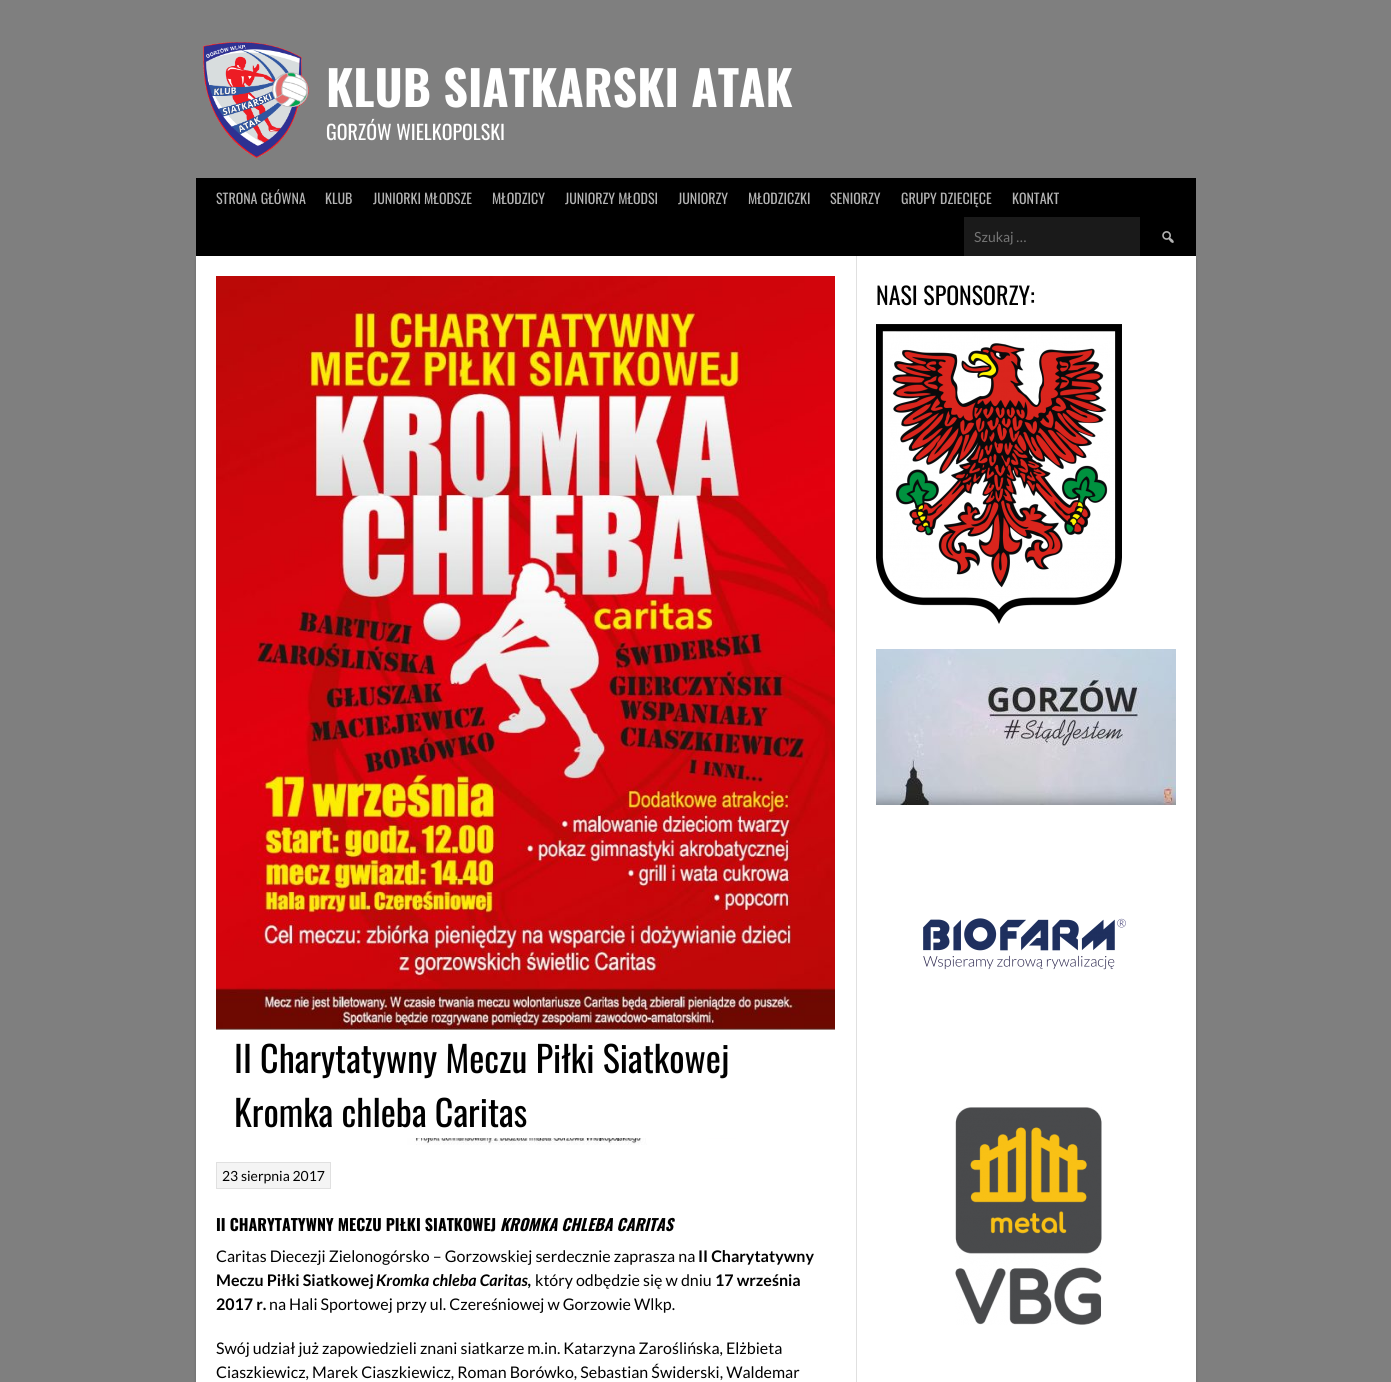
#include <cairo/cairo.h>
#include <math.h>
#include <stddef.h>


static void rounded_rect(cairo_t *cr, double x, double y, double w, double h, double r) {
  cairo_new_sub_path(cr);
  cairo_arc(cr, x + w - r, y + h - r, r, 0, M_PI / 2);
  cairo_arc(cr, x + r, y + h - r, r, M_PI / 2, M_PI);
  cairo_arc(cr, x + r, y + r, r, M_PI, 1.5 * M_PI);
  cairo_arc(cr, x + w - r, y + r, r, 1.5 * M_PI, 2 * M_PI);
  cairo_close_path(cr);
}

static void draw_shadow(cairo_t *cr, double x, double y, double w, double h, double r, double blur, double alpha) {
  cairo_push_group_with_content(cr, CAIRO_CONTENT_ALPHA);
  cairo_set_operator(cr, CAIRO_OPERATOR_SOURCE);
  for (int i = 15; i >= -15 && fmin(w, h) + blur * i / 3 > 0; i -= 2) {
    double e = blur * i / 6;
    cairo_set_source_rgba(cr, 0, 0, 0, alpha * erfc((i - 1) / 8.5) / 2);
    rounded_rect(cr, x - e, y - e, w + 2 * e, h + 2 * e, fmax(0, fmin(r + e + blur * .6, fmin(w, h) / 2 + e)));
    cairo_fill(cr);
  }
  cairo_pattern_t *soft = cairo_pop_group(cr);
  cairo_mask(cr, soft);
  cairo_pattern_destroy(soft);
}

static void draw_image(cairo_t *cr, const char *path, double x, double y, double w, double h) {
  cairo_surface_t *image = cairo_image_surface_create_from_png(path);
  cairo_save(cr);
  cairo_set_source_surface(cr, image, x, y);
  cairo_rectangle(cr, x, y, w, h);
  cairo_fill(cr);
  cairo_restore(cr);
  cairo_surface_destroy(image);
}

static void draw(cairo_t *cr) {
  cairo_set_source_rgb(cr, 127 / 255.0, 127 / 255.0, 127 / 255.0);
  cairo_paint(cr);
  draw_image(cr, "images/1.png", 203, 42, 106, 116);
  cairo_set_source_rgb(cr, 0, 0, 0);
  draw_shadow(cr, 196, 259, 1000, 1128, 0, 1.5, 0.2);
  cairo_set_source_rgb(cr, 0, 0, 0);
  cairo_rectangle(cr, 196, 178, 1000, 78);
  cairo_fill(cr);
  cairo_set_source_rgb(cr, 26 / 255.0, 26 / 255.0, 26 / 255.0);
  cairo_rectangle(cr, 964, 217, 176, 39);
  cairo_fill(cr);
  draw_image(cr, "images/2.png", 1162, 231, 12, 12);
  cairo_set_source_rgb(cr, 1, 1, 1);
  cairo_rectangle(cr, 196, 256, 1000, 1126);
  cairo_fill(cr);
  draw_image(cr, "images/3.png", 876, 324, 246, 300);
  draw_image(cr, "images/4.png", 876, 649, 300, 156);
  draw_image(cr, "images/5.png", 923, 918, 203, 52);
  draw_image(cr, "images/6.png", 955, 1107, 147, 218);
  cairo_set_source_rgb(cr, 224 / 255.0, 224 / 255.0, 224 / 255.0);
  cairo_rectangle(cr, 856, 256, 1, 1126);
  cairo_fill(cr);
  draw_image(cr, "images/7.png", 216, 276, 619, 869);
  cairo_set_source_rgb(cr, 1, 1, 1);
  cairo_rectangle(cr, 216, 1030, 619, 108);
  cairo_fill(cr);
  cairo_set_source_rgb(cr, 244 / 255.0, 244 / 255.0, 244 / 255.0);
  cairo_rectangle(cr, 216.5, 1162.5, 114, 26);
  cairo_fill_preserve(cr);
  cairo_set_source_rgb(cr, 224 / 255.0, 224 / 255.0, 224 / 255.0);
  cairo_set_line_width(cr, 1);
  cairo_stroke(cr);
  cairo_select_font_face(cr, "Oswald", CAIRO_FONT_SLANT_NORMAL, CAIRO_FONT_WEIGHT_BOLD);
  cairo_set_font_size(cr, 48);
  cairo_set_source_rgb(cr, 1, 1, 1);
  cairo_move_to(cr, 326, 107);
  cairo_show_text(cr, "KLUB SIATKARSKI ATAK");
  cairo_select_font_face(cr, "Oswald", CAIRO_FONT_SLANT_NORMAL, CAIRO_FONT_WEIGHT_NORMAL);
  cairo_set_font_size(cr, 20);
  cairo_move_to(cr, 326, 140);
  cairo_show_text(cr, "GORZÓW WIELKOPOLSKI");
  cairo_set_font_size(cr, 14);
  cairo_set_source_rgb(cr, 179 / 255.0, 179 / 255.0, 179 / 255.0);
  cairo_move_to(cr, 216, 204);
  cairo_show_text(cr, "STRONA GŁÓWNA");
  cairo_move_to(cr, 325, 204);
  cairo_show_text(cr, "KLUB");
  cairo_move_to(cr, 373, 204);
  cairo_show_text(cr, "JUNIORKI MŁODSZE");
  cairo_move_to(cr, 492, 204);
  cairo_show_text(cr, "MŁODZICY");
  cairo_move_to(cr, 565, 204);
  cairo_show_text(cr, "JUNIORZY MŁODSI");
  cairo_move_to(cr, 678, 204);
  cairo_show_text(cr, "JUNIORZY");
  cairo_move_to(cr, 748, 204);
  cairo_show_text(cr, "MŁODZICZKI");
  cairo_move_to(cr, 830, 204);
  cairo_show_text(cr, "SENIORZY");
  cairo_move_to(cr, 901, 204);
  cairo_show_text(cr, "GRUPY DZIECIĘCE");
  cairo_move_to(cr, 1012, 204);
  cairo_show_text(cr, "KONTAKT");
  cairo_select_font_face(cr, "Lato", CAIRO_FONT_SLANT_NORMAL, CAIRO_FONT_WEIGHT_NORMAL);
  cairo_set_source_rgb(cr, 117 / 255.0, 117 / 255.0, 117 / 255.0);
  cairo_move_to(cr, 974, 242);
  cairo_show_text(cr, "Szukaj …");
  cairo_select_font_face(cr, "Oswald", CAIRO_FONT_SLANT_NORMAL, CAIRO_FONT_WEIGHT_NORMAL);
  cairo_set_font_size(cr, 24);
  cairo_set_source_rgb(cr, 0, 0, 0);
  cairo_move_to(cr, 876, 305);
  cairo_show_text(cr, "NASI SPONSORZY:");
  cairo_set_font_size(cr, 36);
  cairo_move_to(cr, 234, 1073);
  cairo_show_text(cr, "II Charytatywny Meczu Piłki Siatkowej");
  cairo_move_to(cr, 234, 1127);
  cairo_show_text(cr, "Kromka chleba Caritas");
  cairo_select_font_face(cr, "Lato", CAIRO_FONT_SLANT_NORMAL, CAIRO_FONT_WEIGHT_NORMAL);
  cairo_set_font_size(cr, 14);
  cairo_move_to(cr, 222, 1181);
  cairo_show_text(cr, "23 sierpnia 2017");
  cairo_select_font_face(cr, "Oswald", CAIRO_FONT_SLANT_NORMAL, CAIRO_FONT_WEIGHT_BOLD);
  cairo_set_font_size(cr, 16);
  cairo_move_to(cr, 216, 1231);
  cairo_show_text(cr, "II CHARYTATYWNY MECZU PIŁKI SIATKOWEJ");
  cairo_select_font_face(cr, "Oswald", CAIRO_FONT_SLANT_ITALIC, CAIRO_FONT_WEIGHT_BOLD);
  cairo_move_to(cr, 500, 1231);
  cairo_show_text(cr, "KROMKA CHLEBA CARITAS");
  cairo_select_font_face(cr, "Lato", CAIRO_FONT_SLANT_NORMAL, CAIRO_FONT_WEIGHT_NORMAL);
  cairo_move_to(cr, 216, 1262);
  cairo_show_text(cr, "Caritas Diecezji Zielonogórsko – Gorzowskiej serdecznie zaprasza na");
  cairo_select_font_face(cr, "Lato", CAIRO_FONT_SLANT_NORMAL, CAIRO_FONT_WEIGHT_BOLD);
  cairo_move_to(cr, 698, 1262);
  cairo_show_text(cr, "II Charytatywny");
  cairo_move_to(cr, 216, 1286);
  cairo_show_text(cr, "Meczu Piłki Siatkowej");
  cairo_select_font_face(cr, "Lato", CAIRO_FONT_SLANT_ITALIC, CAIRO_FONT_WEIGHT_BOLD);
  cairo_move_to(cr, 376, 1286);
  cairo_show_text(cr, "Kromka chleba Caritas,");
  cairo_select_font_face(cr, "Lato", CAIRO_FONT_SLANT_NORMAL, CAIRO_FONT_WEIGHT_NORMAL);
  cairo_move_to(cr, 535, 1286);
  cairo_show_text(cr, "który odbędzie się w dniu");
  cairo_select_font_face(cr, "Lato", CAIRO_FONT_SLANT_NORMAL, CAIRO_FONT_WEIGHT_BOLD);
  cairo_move_to(cr, 715, 1286);
  cairo_show_text(cr, "17 września");
  cairo_move_to(cr, 216, 1310);
  cairo_show_text(cr, "2017 r.");
  cairo_select_font_face(cr, "Lato", CAIRO_FONT_SLANT_NORMAL, CAIRO_FONT_WEIGHT_NORMAL);
  cairo_move_to(cr, 269, 1310);
  cairo_show_text(cr, "na Hali Sportowej przy ul. Czereśniowej w Gorzowie Wlkp.");
  cairo_move_to(cr, 216, 1354);
  cairo_show_text(cr, "Swój udział już zapowiedzieli znani siatkarze m.in. Katarzyna Zaroślińska, Elżbieta");
  cairo_move_to(cr, 216, 1378);
  cairo_show_text(cr, "Ciaszkiewicz, Marek Ciaszkiewicz, Roman Borówko, Sebastian Świderski, Waldemar");
}

int main(void) {
  cairo_surface_t *surface = cairo_image_surface_create(CAIRO_FORMAT_RGB24, 1391, 1382);
  cairo_t *cr = cairo_create(surface);
  cairo_font_options_t *options = cairo_font_options_create();
  cairo_font_options_set_hint_metrics(options, CAIRO_HINT_METRICS_OFF);
  cairo_font_options_set_hint_style(options, CAIRO_HINT_STYLE_NONE);
  cairo_set_font_options(cr, options);
  cairo_set_miter_limit(cr, 4);
  draw(cr);
  cairo_surface_write_to_png(surface, "out.png");
  cairo_font_options_destroy(options);
  cairo_destroy(cr);
  cairo_surface_destroy(surface);
  return 0;
}
